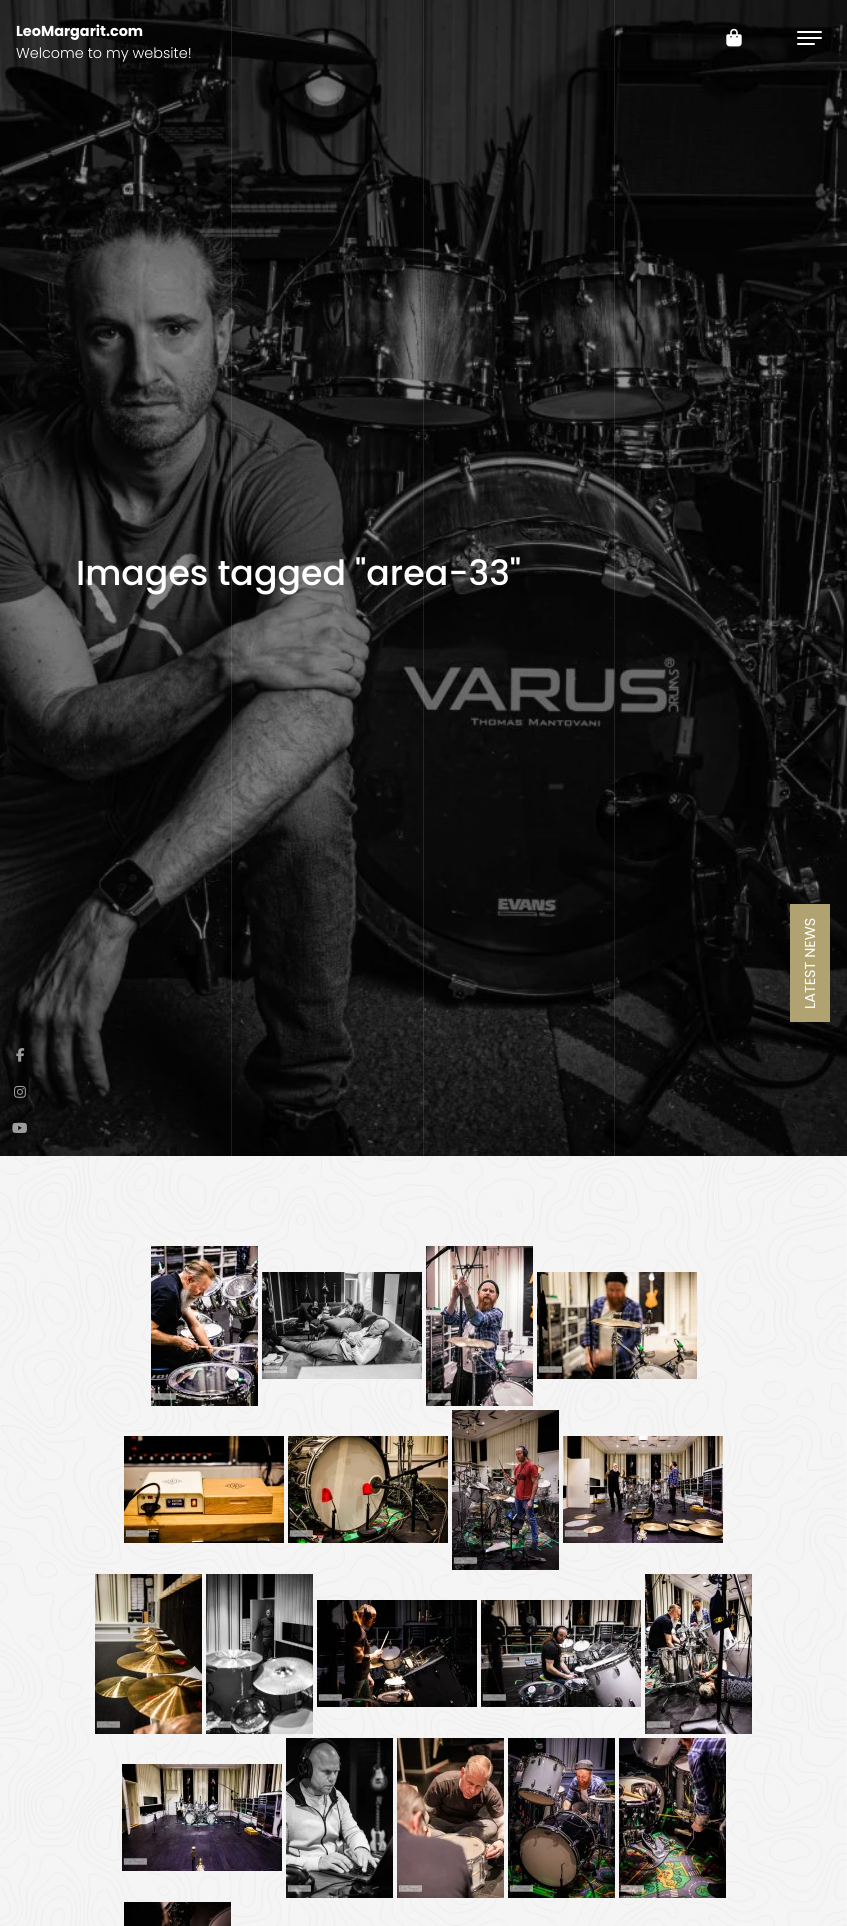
#include <cairo/cairo.h>
#include <math.h>
#include <stddef.h>


static void rounded_rect(cairo_t *cr, double x, double y, double w, double h, double r) {
  cairo_new_sub_path(cr);
  cairo_arc(cr, x + w - r, y + h - r, r, 0, M_PI / 2);
  cairo_arc(cr, x + r, y + h - r, r, M_PI / 2, M_PI);
  cairo_arc(cr, x + r, y + r, r, M_PI, 1.5 * M_PI);
  cairo_arc(cr, x + w - r, y + r, r, 1.5 * M_PI, 2 * M_PI);
  cairo_close_path(cr);
}

static void draw_image(cairo_t *cr, const char *path, double x, double y, double w, double h) {
  cairo_surface_t *image = cairo_image_surface_create_from_png(path);
  cairo_save(cr);
  cairo_set_source_surface(cr, image, x, y);
  cairo_rectangle(cr, x, y, w, h);
  cairo_fill(cr);
  cairo_restore(cr);
  cairo_surface_destroy(image);
}

static void draw(cairo_t *cr) {
  cairo_set_source_rgb(cr, 1, 1, 1);
  cairo_paint(cr);
  draw_image(cr, "images/1.png", 0, 1156, 847, 770);
  draw_image(cr, "images/3.png", 0, 0, 847, 1156);
  draw_image(cr, "images/2.png", 726, 28, 16, 19);
  cairo_set_source_rgb(cr, 1, 1, 1);
  rounded_rect(cr, 797, 31, 25, 2, 1);
  cairo_fill(cr);
  rounded_rect(cr, 797, 37, 25, 2, 1);
  cairo_fill(cr);
  rounded_rect(cr, 797, 43, 18, 2, 1);
  cairo_fill(cr);
  cairo_set_source_rgba(cr, 1, 1, 1, 0.1);
  cairo_rectangle(cr, 231, 0, 1, 1156);
  cairo_fill(cr);
  cairo_rectangle(cr, 423, 0, 1, 1156);
  cairo_fill(cr);
  cairo_rectangle(cr, 614, 0, 1, 1156);
  cairo_fill(cr);
  draw_image(cr, "images/4.png", 16, 1048, 9, 14);
  draw_image(cr, "images/5.png", 14, 1085, 12, 13);
  draw_image(cr, "images/6.png", 12, 1122, 15, 11);
  cairo_set_source_rgb(cr, 177 / 255.0, 163 / 255.0, 113 / 255.0);
  cairo_rectangle(cr, 790, 904, 40, 118);
  cairo_fill(cr);
  draw_image(cr, "images/7.png", 151, 1246, 107, 160);
  draw_image(cr, "images/8.png", 262, 1272, 160, 107);
  draw_image(cr, "images/9.png", 426, 1246, 107, 160);
  draw_image(cr, "images/10.png", 537, 1272, 160, 107);
  draw_image(cr, "images/11.png", 124, 1436, 160, 107);
  draw_image(cr, "images/12.png", 288, 1436, 160, 107);
  draw_image(cr, "images/13.png", 452, 1410, 107, 160);
  draw_image(cr, "images/14.png", 563, 1436, 160, 107);
  draw_image(cr, "images/15.png", 95, 1574, 107, 160);
  draw_image(cr, "images/16.png", 206, 1574, 107, 160);
  draw_image(cr, "images/17.png", 317, 1600, 160, 107);
  draw_image(cr, "images/18.png", 481, 1600, 160, 107);
  draw_image(cr, "images/19.png", 645, 1574, 107, 160);
  draw_image(cr, "images/20.png", 122, 1764, 160, 107);
  draw_image(cr, "images/21.png", 286, 1738, 107, 160);
  draw_image(cr, "images/22.png", 397, 1738, 107, 160);
  draw_image(cr, "images/23.png", 508, 1738, 107, 160);
  draw_image(cr, "images/24.png", 619, 1738, 107, 160);
  draw_image(cr, "images/25.png", 124, 1902, 107, 24);
  cairo_select_font_face(cr, "Poppins", CAIRO_FONT_SLANT_NORMAL, CAIRO_FONT_WEIGHT_BOLD);
  cairo_set_font_size(cr, 14.4);
  cairo_set_source_rgb(cr, 1, 1, 1);
  cairo_move_to(cr, 16, 36);
  cairo_show_text(cr, "LeoMargarit.com");
  cairo_select_font_face(cr, "Poppins Light", CAIRO_FONT_SLANT_NORMAL, CAIRO_FONT_WEIGHT_NORMAL);
  cairo_move_to(cr, 16, 58);
  cairo_show_text(cr, "Welcome to my website!");
  cairo_select_font_face(cr, "Poppins Medium", CAIRO_FONT_SLANT_NORMAL, CAIRO_FONT_WEIGHT_NORMAL);
  cairo_set_font_size(cr, 34.75);
  cairo_move_to(cr, 76, 585);
  cairo_show_text(cr, "Images tagged \"area-33\"");
  cairo_select_font_face(cr, "Poppins", CAIRO_FONT_SLANT_NORMAL, CAIRO_FONT_WEIGHT_NORMAL);
  cairo_set_font_size(cr, 14.4);
  cairo_save(cr);
  cairo_translate(cr, 815, 1009);
  cairo_rotate(cr, -90 * M_PI / 180);
  cairo_move_to(cr, 0, 0);
  cairo_show_text(cr, "LATEST NEWS");
  cairo_restore(cr);
}

int main(void) {
  cairo_surface_t *surface = cairo_image_surface_create(CAIRO_FORMAT_RGB24, 847, 1926);
  cairo_t *cr = cairo_create(surface);
  cairo_font_options_t *options = cairo_font_options_create();
  cairo_font_options_set_hint_metrics(options, CAIRO_HINT_METRICS_OFF);
  cairo_font_options_set_hint_style(options, CAIRO_HINT_STYLE_NONE);
  cairo_set_font_options(cr, options);
  cairo_set_miter_limit(cr, 4);
  draw(cr);
  cairo_surface_write_to_png(surface, "out.png");
  cairo_font_options_destroy(options);
  cairo_destroy(cr);
  cairo_surface_destroy(surface);
  return 0;
}
